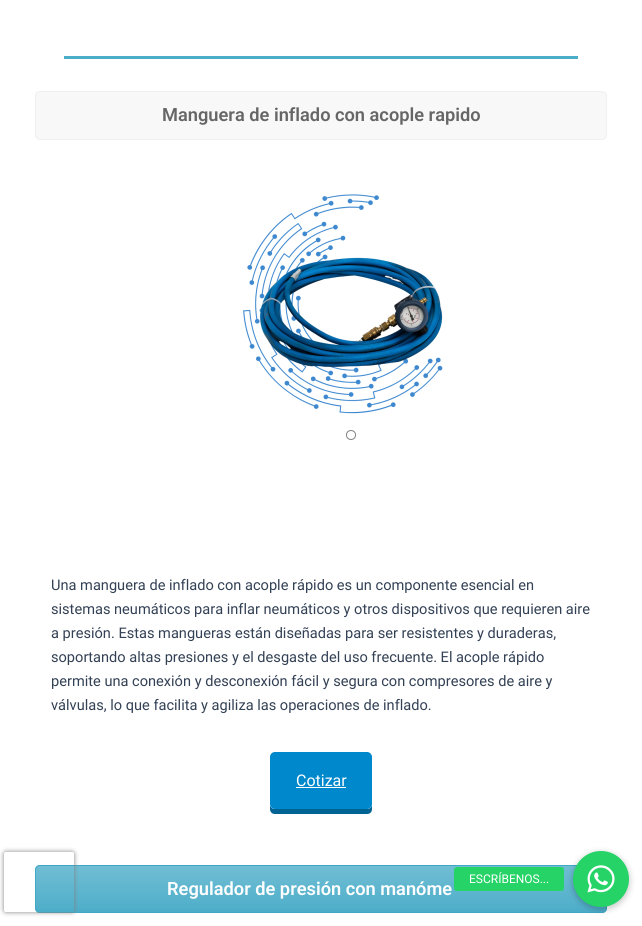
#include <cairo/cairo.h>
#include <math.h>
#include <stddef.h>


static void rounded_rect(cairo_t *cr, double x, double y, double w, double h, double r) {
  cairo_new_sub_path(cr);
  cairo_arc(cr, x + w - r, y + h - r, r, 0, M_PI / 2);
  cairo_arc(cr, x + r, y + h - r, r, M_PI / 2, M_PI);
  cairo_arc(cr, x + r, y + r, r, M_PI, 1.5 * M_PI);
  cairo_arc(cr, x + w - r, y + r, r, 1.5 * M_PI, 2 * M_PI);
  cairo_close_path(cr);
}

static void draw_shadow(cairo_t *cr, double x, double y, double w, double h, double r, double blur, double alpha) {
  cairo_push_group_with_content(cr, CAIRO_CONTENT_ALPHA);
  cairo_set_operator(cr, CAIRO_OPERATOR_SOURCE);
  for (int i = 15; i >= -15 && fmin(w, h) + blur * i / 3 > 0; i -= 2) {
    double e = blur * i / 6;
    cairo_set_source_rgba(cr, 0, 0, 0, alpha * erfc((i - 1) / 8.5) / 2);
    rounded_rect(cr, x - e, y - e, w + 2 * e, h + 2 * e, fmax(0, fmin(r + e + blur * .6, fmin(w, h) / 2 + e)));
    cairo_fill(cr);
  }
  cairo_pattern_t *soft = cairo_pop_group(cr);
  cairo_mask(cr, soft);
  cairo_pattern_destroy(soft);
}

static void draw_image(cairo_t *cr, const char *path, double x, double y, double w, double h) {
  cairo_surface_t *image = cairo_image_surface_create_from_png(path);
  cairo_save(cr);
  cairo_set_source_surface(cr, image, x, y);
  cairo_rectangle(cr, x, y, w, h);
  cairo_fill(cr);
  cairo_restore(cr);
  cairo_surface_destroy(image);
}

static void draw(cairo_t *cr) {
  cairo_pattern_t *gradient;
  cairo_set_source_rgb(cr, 1, 1, 1);
  cairo_paint(cr);
  cairo_set_source_rgb(cr, 76 / 255.0, 173 / 255.0, 201 / 255.0);
  rounded_rect(cr, 35, 865, 572, 48, 5);
  cairo_fill(cr);
  cairo_save(cr);
  rounded_rect(cr, 35, 865, 572, 48, 5);
  cairo_clip(cr);
  gradient = cairo_pattern_create_linear(321, 866, 321, 912);
  cairo_pattern_add_color_stop_rgba(gradient, 0, 1, 1, 1, 0.2);
  cairo_pattern_add_color_stop_rgba(gradient, 1, 1, 1, 1, 0.01);
  cairo_set_source(cr, gradient);
  cairo_pattern_destroy(gradient);
  cairo_rectangle(cr, 35, 866, 572, 43);
  cairo_fill(cr);
  cairo_restore(cr);
  rounded_rect(cr, 35.5, 865.5, 571, 47, 4.5);
  cairo_set_source_rgb(cr, 64 / 255.0, 168 / 255.0, 197 / 255.0);
  cairo_set_line_width(cr, 1);
  cairo_stroke(cr);
  cairo_save(cr);
  cairo_set_fill_rule(cr, CAIRO_FILL_RULE_EVEN_ODD);
  cairo_new_path(cr);
  cairo_move_to(cr, 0, 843);
  cairo_line_to(cr, 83, 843);
  cairo_line_to(cr, 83, 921);
  cairo_line_to(cr, 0, 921);
  cairo_close_path(cr);
  cairo_move_to(cr, 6, 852);
  cairo_line_to(cr, 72, 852);
  cairo_curve_to(cr, 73, 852, 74, 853, 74, 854);
  cairo_line_to(cr, 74, 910);
  cairo_curve_to(cr, 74, 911, 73, 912, 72, 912);
  cairo_line_to(cr, 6, 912);
  cairo_curve_to(cr, 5, 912, 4, 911, 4, 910);
  cairo_line_to(cr, 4, 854);
  cairo_curve_to(cr, 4, 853, 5, 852, 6, 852);
  cairo_close_path(cr);
  cairo_clip(cr);
  cairo_set_source_rgb(cr, 128 / 255.0, 128 / 255.0, 128 / 255.0);
  draw_shadow(cr, 4, 852, 70, 60, 2, 2.5, 1);
  cairo_restore(cr);
  cairo_set_source_rgb(cr, 76 / 255.0, 173 / 255.0, 201 / 255.0);
  cairo_rectangle(cr, 64, 56, 514, 3);
  cairo_fill(cr);
  cairo_set_source_rgb(cr, 248 / 255.0, 248 / 255.0, 248 / 255.0);
  rounded_rect(cr, 35.5, 91.5, 571, 48, 4.5);
  cairo_fill_preserve(cr);
  cairo_set_source_rgb(cr, 240 / 255.0, 240 / 255.0, 240 / 255.0);
  cairo_stroke(cr);
  draw_image(cr, "images/1.png", 243, 194, 200, 220);
  cairo_arc(cr, 351, 435, 4.5, 0, 2 * M_PI);
  cairo_set_source_rgb(cr, 128 / 255.0, 128 / 255.0, 128 / 255.0);
  cairo_stroke(cr);
  cairo_set_source_rgb(cr, 0, 99 / 255.0, 148 / 255.0);
  cairo_new_path(cr);
  cairo_move_to(cr, 270, 804);
  cairo_line_to(cr, 270, 809);
  cairo_curve_to(cr, 270, 812, 272, 814, 275, 814);
  cairo_line_to(cr, 367, 814);
  cairo_curve_to(cr, 370, 814, 372, 812, 372, 809);
  cairo_line_to(cr, 372, 804);
  cairo_curve_to(cr, 372, 807, 370, 809, 367, 809);
  cairo_line_to(cr, 275, 809);
  cairo_curve_to(cr, 272, 809, 270, 807, 270, 804);
  cairo_close_path(cr);
  cairo_fill(cr);
  cairo_set_source_rgb(cr, 0, 136 / 255.0, 204 / 255.0);
  rounded_rect(cr, 270, 752, 102, 57, 5);
  cairo_fill(cr);
  cairo_set_source_rgb(cr, 1, 1, 1);
  cairo_rectangle(cr, 296, 787, 50, 1);
  cairo_fill(cr);
  cairo_set_source_rgb(cr, 0, 0, 0);
  draw_shadow(cr, 572, 852, 58, 58, 29, 3, 0.2);
  cairo_set_source_rgb(cr, 37 / 255.0, 211 / 255.0, 102 / 255.0);
  cairo_arc(cr, 601, 879, 28, 0, 2 * M_PI);
  cairo_fill(cr);
  rounded_rect(cr, 454, 867, 110, 24, 3);
  cairo_fill(cr);
  draw_image(cr, "images/2.png", 587, 865, 28, 28);
  cairo_select_font_face(cr, "Roboto SemiBold", CAIRO_FONT_SLANT_NORMAL, CAIRO_FONT_WEIGHT_NORMAL);
  cairo_set_font_size(cr, 18.25);
  cairo_set_source_rgb(cr, 102 / 255.0, 102 / 255.0, 102 / 255.0);
  cairo_move_to(cr, 162, 121);
  cairo_show_text(cr, "Manguera de inflado con acople rapido");
  cairo_select_font_face(cr, "Roboto", CAIRO_FONT_SLANT_NORMAL, CAIRO_FONT_WEIGHT_NORMAL);
  cairo_set_font_size(cr, 14.6);
  cairo_set_source_rgb(cr, 51 / 255.0, 65 / 255.0, 85 / 255.0);
  cairo_move_to(cr, 51, 590);
  cairo_show_text(cr, "Una manguera de inflado con acople rápido es un componente esencial en");
  cairo_move_to(cr, 51, 614);
  cairo_show_text(cr, "sistemas neumáticos para inflar neumáticos y otros dispositivos que requieren aire");
  cairo_move_to(cr, 51, 638);
  cairo_show_text(cr, "a presión. Estas mangueras están diseñadas para ser resistentes y duraderas,");
  cairo_move_to(cr, 51, 662);
  cairo_show_text(cr, "soportando altas presiones y el desgaste del uso frecuente. El acople rápido");
  cairo_move_to(cr, 51, 686);
  cairo_show_text(cr, "permite una conexión y desconexión fácil y segura con compresores de aire y");
  cairo_move_to(cr, 51, 710);
  cairo_show_text(cr, "válvulas, lo que facilita y agiliza las operaciones de inflado.");
  cairo_set_font_size(cr, 16);
  cairo_set_source_rgb(cr, 1, 1, 1);
  cairo_move_to(cr, 296, 786);
  cairo_show_text(cr, "Cotizar");
  cairo_select_font_face(cr, "Roboto SemiBold", CAIRO_FONT_SLANT_NORMAL, CAIRO_FONT_WEIGHT_NORMAL);
  cairo_set_font_size(cr, 18.25);
  cairo_move_to(cr, 167, 895);
  cairo_show_text(cr, "Regulador de presión con manóme");
  cairo_select_font_face(cr, "Roboto", CAIRO_FONT_SLANT_NORMAL, CAIRO_FONT_WEIGHT_NORMAL);
  cairo_set_font_size(cr, 12);
  cairo_move_to(cr, 469, 883);
  cairo_show_text(cr, "ESCRÍBENOS...");
}

int main(void) {
  cairo_surface_t *surface = cairo_image_surface_create(CAIRO_FORMAT_RGB24, 642, 926);
  cairo_t *cr = cairo_create(surface);
  cairo_font_options_t *options = cairo_font_options_create();
  cairo_font_options_set_hint_metrics(options, CAIRO_HINT_METRICS_OFF);
  cairo_font_options_set_hint_style(options, CAIRO_HINT_STYLE_NONE);
  cairo_set_font_options(cr, options);
  cairo_set_miter_limit(cr, 4);
  draw(cr);
  cairo_surface_write_to_png(surface, "out.png");
  cairo_font_options_destroy(options);
  cairo_destroy(cr);
  cairo_surface_destroy(surface);
  return 0;
}
